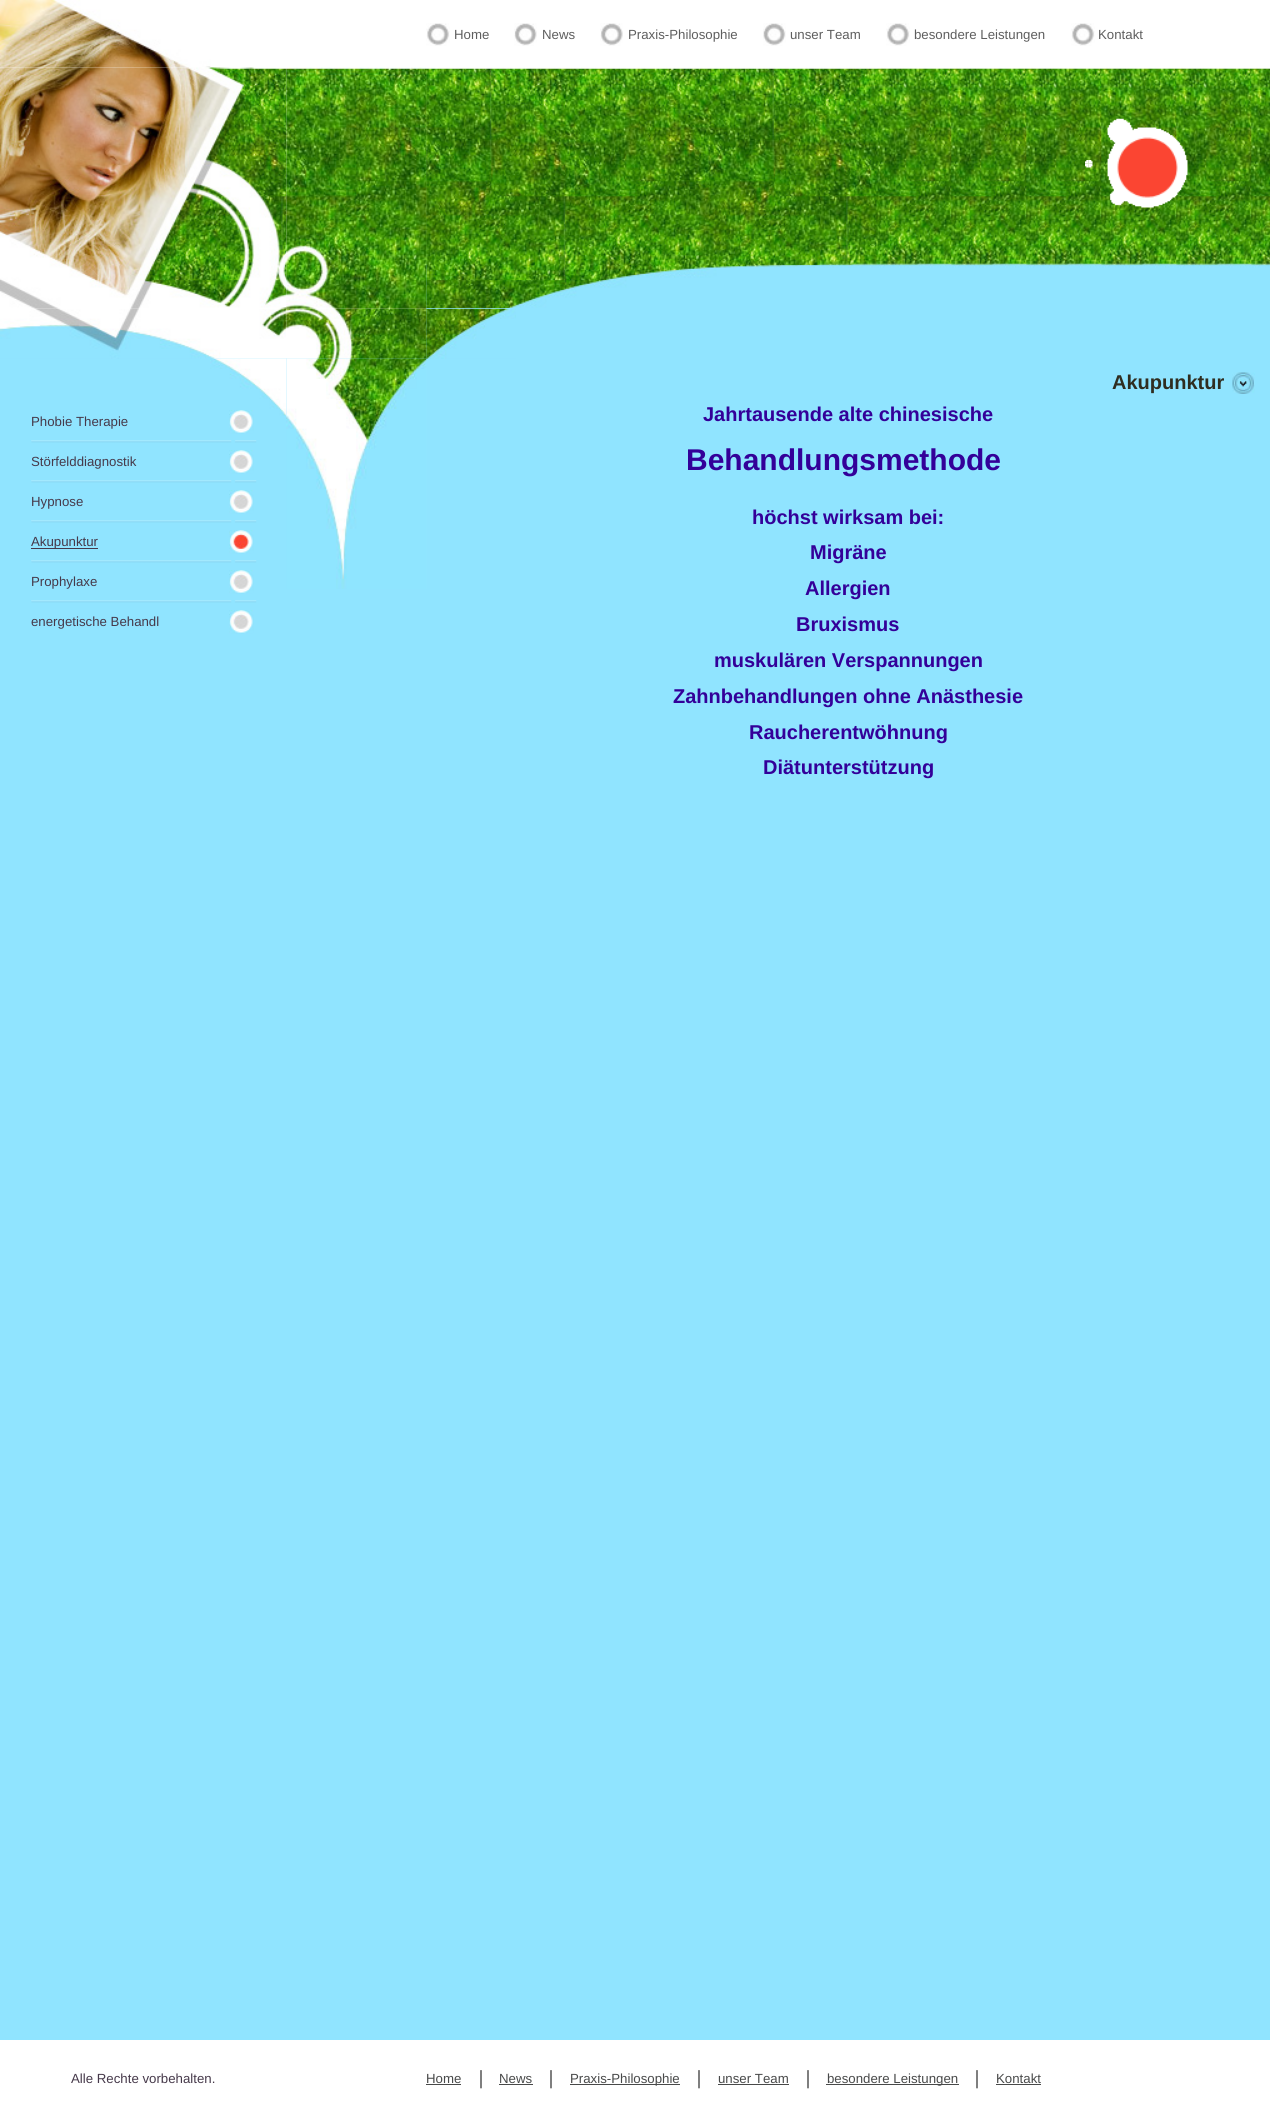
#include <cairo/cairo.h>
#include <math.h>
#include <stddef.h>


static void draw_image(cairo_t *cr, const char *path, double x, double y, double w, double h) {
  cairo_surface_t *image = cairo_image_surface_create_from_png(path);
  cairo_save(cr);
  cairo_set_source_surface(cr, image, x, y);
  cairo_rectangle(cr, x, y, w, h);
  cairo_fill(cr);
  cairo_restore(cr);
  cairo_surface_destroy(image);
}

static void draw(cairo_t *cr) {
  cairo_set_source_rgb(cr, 1, 1, 1);
  cairo_paint(cr);
  draw_image(cr, "images/1.png", 0, 0, 211, 68);
  draw_image(cr, "images/2.png", 426, 23, 24, 23);
  draw_image(cr, "images/3.png", 514, 23, 23, 23);
  draw_image(cr, "images/4.png", 600, 23, 23, 23);
  draw_image(cr, "images/5.png", 763, 23, 23, 23);
  draw_image(cr, "images/2.png", 886, 23, 24, 23);
  draw_image(cr, "images/2.png", 1071, 23, 24, 23);
  draw_image(cr, "images/6.png", 0, 67, 287, 242);
  draw_image(cr, "images/8.png", 426, 67, 844, 241);
  draw_image(cr, "images/9.png", 426, 67, 452, 241);
  cairo_set_source_rgb(cr, 144 / 255.0, 228 / 255.0, 1);
  cairo_rectangle(cr, 426, 308, 844, 51);
  cairo_fill(cr);
  draw_image(cr, "images/7.png", 286, 67, 141, 242);
  draw_image(cr, "images/10.png", 1085, 160, 4, 4);
  draw_image(cr, "images/11.png", 1088, 160, 5, 4);
  draw_image(cr, "images/12.png", 1085, 163, 4, 5);
  draw_image(cr, "images/13.png", 1088, 163, 5, 5);
  draw_image(cr, "images/14.png", 1107, 118, 81, 90);
  cairo_rectangle(cr, 0, 358, 427, 1682);
  cairo_fill(cr);
  draw_image(cr, "images/18.png", 210, 358, 76, 58);
  draw_image(cr, "images/15.png", 0, 308, 287, 51);
  draw_image(cr, "images/16.png", 286, 308, 141, 51);
  draw_image(cr, "images/17.png", 426, 308, 90, 51);
  draw_image(cr, "images/19.png", 229, 410, 25, 24);
  draw_image(cr, "images/20.png", 31, 440, 226, 3);
  cairo_set_source_rgb(cr, 160 / 255.0, 231 / 255.0, 254 / 255.0);
  cairo_rectangle(cr, 31, 440, 1, 1);
  cairo_fill(cr);
  draw_image(cr, "images/19.png", 229, 450, 25, 24);
  draw_image(cr, "images/21.png", 31, 480, 226, 3);
  cairo_rectangle(cr, 31, 480, 1, 1);
  cairo_fill(cr);
  draw_image(cr, "images/19.png", 229, 490, 25, 24);
  draw_image(cr, "images/21.png", 31, 520, 226, 3);
  cairo_rectangle(cr, 31, 520, 1, 1);
  cairo_fill(cr);
  cairo_set_source_rgb(cr, 70 / 255.0, 57 / 255.0, 74 / 255.0);
  cairo_rectangle(cr, 31, 548, 67, 1);
  cairo_fill(cr);
  draw_image(cr, "images/22.png", 229, 530, 25, 24);
  draw_image(cr, "images/23.png", 31, 560, 226, 3);
  cairo_set_source_rgb(cr, 160 / 255.0, 231 / 255.0, 254 / 255.0);
  cairo_rectangle(cr, 31, 560, 1, 1);
  cairo_fill(cr);
  draw_image(cr, "images/24.png", 229, 570, 25, 24);
  draw_image(cr, "images/21.png", 31, 600, 226, 3);
  cairo_rectangle(cr, 31, 600, 1, 1);
  cairo_fill(cr);
  draw_image(cr, "images/19.png", 229, 610, 25, 24);
  draw_image(cr, "images/25.png", 286, 358, 141, 231);
  cairo_set_source_rgb(cr, 144 / 255.0, 228 / 255.0, 1);
  cairo_rectangle(cr, 427, 359, 843, 1681);
  cairo_fill(cr);
  draw_image(cr, "images/26.png", 1232, 372, 23, 22);
  cairo_set_source_rgb(cr, 72 / 255.0, 73 / 255.0, 73 / 255.0);
  cairo_rectangle(cr, 426, 2084, 35, 1);
  cairo_fill(cr);
  cairo_rectangle(cr, 499, 2084, 34, 1);
  cairo_fill(cr);
  cairo_rectangle(cr, 570, 2084, 110, 1);
  cairo_fill(cr);
  cairo_rectangle(cr, 718, 2084, 71, 1);
  cairo_fill(cr);
  cairo_rectangle(cr, 826, 2084, 133, 1);
  cairo_fill(cr);
  cairo_rectangle(cr, 996, 2084, 45, 1);
  cairo_fill(cr);
  cairo_select_font_face(cr, "Liberation Sans", CAIRO_FONT_SLANT_NORMAL, CAIRO_FONT_WEIGHT_NORMAL);
  cairo_set_font_size(cr, 13.25);
  cairo_set_source_rgb(cr, 94 / 255.0, 94 / 255.0, 94 / 255.0);
  cairo_move_to(cr, 454, 39);
  cairo_show_text(cr, "Home");
  cairo_move_to(cr, 542, 39);
  cairo_show_text(cr, "News");
  cairo_move_to(cr, 628, 39);
  cairo_show_text(cr, "Praxis-Philosophie");
  cairo_move_to(cr, 790, 39);
  cairo_show_text(cr, "unser Team");
  cairo_move_to(cr, 914, 39);
  cairo_show_text(cr, "besondere Leistungen");
  cairo_move_to(cr, 1098, 39);
  cairo_show_text(cr, "Kontakt");
  cairo_set_source_rgb(cr, 70 / 255.0, 57 / 255.0, 74 / 255.0);
  cairo_move_to(cr, 31, 426);
  cairo_show_text(cr, "Phobie Therapie");
  cairo_move_to(cr, 31, 466);
  cairo_show_text(cr, "Störfelddiagnostik");
  cairo_move_to(cr, 31, 506);
  cairo_show_text(cr, "Hypnose");
  cairo_move_to(cr, 31, 546);
  cairo_show_text(cr, "Akupunktur");
  cairo_move_to(cr, 31, 586);
  cairo_show_text(cr, "Prophylaxe");
  cairo_move_to(cr, 31, 626);
  cairo_show_text(cr, "energetische Behandl");
  cairo_select_font_face(cr, "Liberation Sans", CAIRO_FONT_SLANT_NORMAL, CAIRO_FONT_WEIGHT_BOLD);
  cairo_set_font_size(cr, 20);
  cairo_set_source_rgb(cr, 47 / 255.0, 45 / 255.0, 32 / 255.0);
  cairo_move_to(cr, 1112, 389);
  cairo_show_text(cr, "Akupunktur");
  cairo_set_source_rgb(cr, 51 / 255.0, 0, 153 / 255.0);
  cairo_move_to(cr, 703, 421);
  cairo_show_text(cr, "Jahrtausende alte chinesische");
  cairo_set_font_size(cr, 30);
  cairo_move_to(cr, 686, 470);
  cairo_show_text(cr, "Behandlungsmethode");
  cairo_set_font_size(cr, 20);
  cairo_move_to(cr, 752, 524);
  cairo_show_text(cr, "höchst wirksam bei:");
  cairo_move_to(cr, 810, 559);
  cairo_show_text(cr, "Migräne");
  cairo_move_to(cr, 805, 595);
  cairo_show_text(cr, "Allergien");
  cairo_move_to(cr, 796, 631);
  cairo_show_text(cr, "Bruxismus");
  cairo_move_to(cr, 714, 667);
  cairo_show_text(cr, "muskulären Verspannungen");
  cairo_move_to(cr, 673, 703);
  cairo_show_text(cr, "Zahnbehandlungen ohne Anästhesie");
  cairo_move_to(cr, 749, 739);
  cairo_show_text(cr, "Raucherentwöhnung");
  cairo_move_to(cr, 763, 774);
  cairo_show_text(cr, "Diätunterstützung");
  cairo_select_font_face(cr, "Liberation Sans", CAIRO_FONT_SLANT_NORMAL, CAIRO_FONT_WEIGHT_NORMAL);
  cairo_set_font_size(cr, 13.25);
  cairo_set_source_rgb(cr, 70 / 255.0, 57 / 255.0, 74 / 255.0);
  cairo_move_to(cr, 71, 2083);
  cairo_show_text(cr, "Alle Rechte vorbehalten.");
  cairo_set_source_rgb(cr, 72 / 255.0, 73 / 255.0, 73 / 255.0);
  cairo_move_to(cr, 426, 2083);
  cairo_show_text(cr, "Home");
  cairo_select_font_face(cr, "Liberation Serif", CAIRO_FONT_SLANT_NORMAL, CAIRO_FONT_WEIGHT_NORMAL);
  cairo_set_font_size(cr, 20);
  cairo_set_source_rgb(cr, 0, 0, 0);
  cairo_move_to(cr, 479, 2084);
  cairo_show_text(cr, "|");
  cairo_select_font_face(cr, "Liberation Sans", CAIRO_FONT_SLANT_NORMAL, CAIRO_FONT_WEIGHT_NORMAL);
  cairo_set_font_size(cr, 13.25);
  cairo_set_source_rgb(cr, 72 / 255.0, 73 / 255.0, 73 / 255.0);
  cairo_move_to(cr, 499, 2083);
  cairo_show_text(cr, "News");
  cairo_select_font_face(cr, "Liberation Serif", CAIRO_FONT_SLANT_NORMAL, CAIRO_FONT_WEIGHT_NORMAL);
  cairo_set_font_size(cr, 20);
  cairo_set_source_rgb(cr, 0, 0, 0);
  cairo_move_to(cr, 549, 2084);
  cairo_show_text(cr, "|");
  cairo_select_font_face(cr, "Liberation Sans", CAIRO_FONT_SLANT_NORMAL, CAIRO_FONT_WEIGHT_NORMAL);
  cairo_set_font_size(cr, 13.25);
  cairo_set_source_rgb(cr, 72 / 255.0, 73 / 255.0, 73 / 255.0);
  cairo_move_to(cr, 570, 2083);
  cairo_show_text(cr, "Praxis-Philosophie");
  cairo_select_font_face(cr, "Liberation Serif", CAIRO_FONT_SLANT_NORMAL, CAIRO_FONT_WEIGHT_NORMAL);
  cairo_set_font_size(cr, 20);
  cairo_set_source_rgb(cr, 0, 0, 0);
  cairo_move_to(cr, 697, 2084);
  cairo_show_text(cr, "|");
  cairo_select_font_face(cr, "Liberation Sans", CAIRO_FONT_SLANT_NORMAL, CAIRO_FONT_WEIGHT_NORMAL);
  cairo_set_font_size(cr, 13.25);
  cairo_set_source_rgb(cr, 72 / 255.0, 73 / 255.0, 73 / 255.0);
  cairo_move_to(cr, 718, 2083);
  cairo_show_text(cr, "unser Team");
  cairo_select_font_face(cr, "Liberation Serif", CAIRO_FONT_SLANT_NORMAL, CAIRO_FONT_WEIGHT_NORMAL);
  cairo_set_font_size(cr, 20);
  cairo_set_source_rgb(cr, 0, 0, 0);
  cairo_move_to(cr, 806, 2084);
  cairo_show_text(cr, "|");
  cairo_select_font_face(cr, "Liberation Sans", CAIRO_FONT_SLANT_NORMAL, CAIRO_FONT_WEIGHT_NORMAL);
  cairo_set_font_size(cr, 13.25);
  cairo_set_source_rgb(cr, 72 / 255.0, 73 / 255.0, 73 / 255.0);
  cairo_move_to(cr, 827, 2083);
  cairo_show_text(cr, "besondere Leistungen");
  cairo_select_font_face(cr, "Liberation Serif", CAIRO_FONT_SLANT_NORMAL, CAIRO_FONT_WEIGHT_NORMAL);
  cairo_set_font_size(cr, 20);
  cairo_set_source_rgb(cr, 0, 0, 0);
  cairo_move_to(cr, 975, 2084);
  cairo_show_text(cr, "|");
  cairo_select_font_face(cr, "Liberation Sans", CAIRO_FONT_SLANT_NORMAL, CAIRO_FONT_WEIGHT_NORMAL);
  cairo_set_font_size(cr, 13.25);
  cairo_set_source_rgb(cr, 72 / 255.0, 73 / 255.0, 73 / 255.0);
  cairo_move_to(cr, 996, 2083);
  cairo_show_text(cr, "Kontakt");
}

int main(void) {
  cairo_surface_t *surface = cairo_image_surface_create(CAIRO_FORMAT_RGB24, 1270, 2114);
  cairo_t *cr = cairo_create(surface);
  cairo_font_options_t *options = cairo_font_options_create();
  cairo_font_options_set_hint_metrics(options, CAIRO_HINT_METRICS_OFF);
  cairo_font_options_set_hint_style(options, CAIRO_HINT_STYLE_NONE);
  cairo_set_font_options(cr, options);
  cairo_set_miter_limit(cr, 4);
  draw(cr);
  cairo_surface_write_to_png(surface, "out.png");
  cairo_font_options_destroy(options);
  cairo_destroy(cr);
  cairo_surface_destroy(surface);
  return 0;
}
